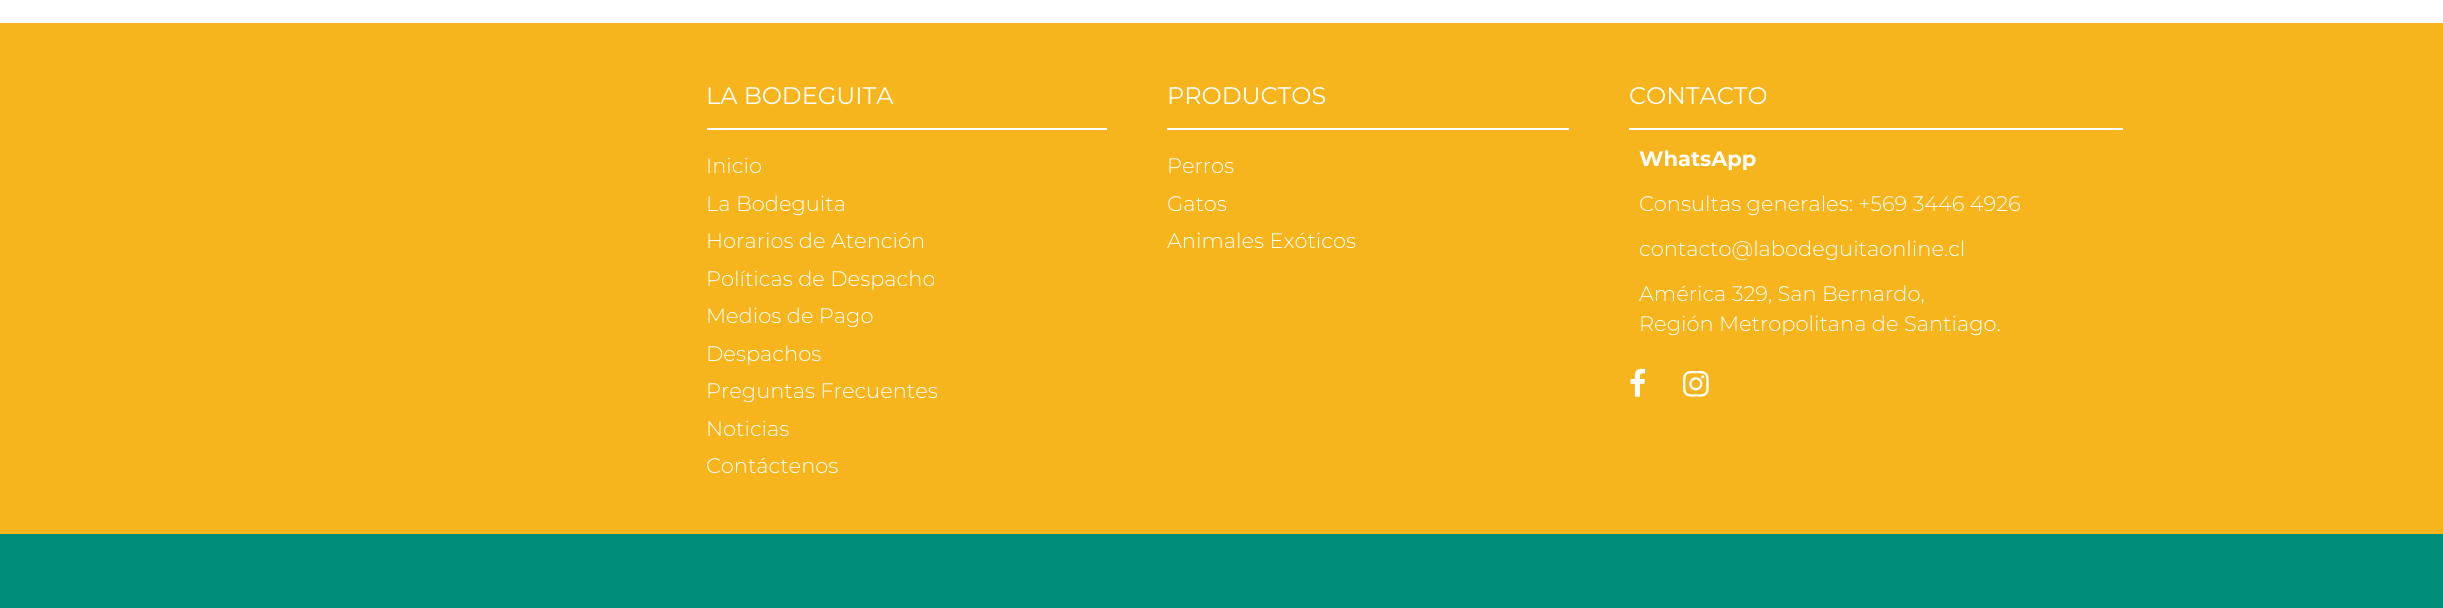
#include <cairo/cairo.h>
#include <math.h>
#include <stddef.h>


static void draw_image(cairo_t *cr, const char *path, double x, double y, double w, double h) {
  cairo_surface_t *image = cairo_image_surface_create_from_png(path);
  cairo_save(cr);
  cairo_set_source_surface(cr, image, x, y);
  cairo_rectangle(cr, x, y, w, h);
  cairo_fill(cr);
  cairo_restore(cr);
  cairo_surface_destroy(image);
}

static void draw(cairo_t *cr) {
  cairo_set_source_rgb(cr, 1, 1, 1);
  cairo_paint(cr);
  cairo_set_source_rgb(cr, 246 / 255.0, 181 / 255.0, 29 / 255.0);
  cairo_rectangle(cr, 0, 23, 2443, 511);
  cairo_fill(cr);
  cairo_set_source_rgb(cr, 1, 1, 1);
  cairo_rectangle(cr, 707, 128, 400, 2);
  cairo_fill(cr);
  cairo_rectangle(cr, 1167, 128, 402, 2);
  cairo_fill(cr);
  cairo_rectangle(cr, 1629, 128, 494, 2);
  cairo_fill(cr);
  draw_image(cr, "images/1.png", 1630, 368, 16, 29);
  draw_image(cr, "images/2.png", 1683, 370, 26, 27);
  cairo_set_source_rgb(cr, 0, 142 / 255.0, 120 / 255.0);
  cairo_rectangle(cr, 0, 534, 2443, 74);
  cairo_fill(cr);
  cairo_select_font_face(cr, "Montserrat", CAIRO_FONT_SLANT_NORMAL, CAIRO_FONT_WEIGHT_NORMAL);
  cairo_set_font_size(cr, 24);
  cairo_set_source_rgb(cr, 1, 1, 1);
  cairo_move_to(cr, 706, 104);
  cairo_show_text(cr, "LA BODEGUITA");
  cairo_select_font_face(cr, "Montserrat Light", CAIRO_FONT_SLANT_NORMAL, CAIRO_FONT_WEIGHT_NORMAL);
  cairo_set_font_size(cr, 21);
  cairo_move_to(cr, 706, 173);
  cairo_show_text(cr, "Inicio");
  cairo_move_to(cr, 706, 211);
  cairo_show_text(cr, "La Bodeguita");
  cairo_move_to(cr, 706, 248);
  cairo_show_text(cr, "Horarios de Atención");
  cairo_move_to(cr, 706, 286);
  cairo_show_text(cr, "Políticas de Despacho");
  cairo_move_to(cr, 706, 323);
  cairo_show_text(cr, "Medios de Pago");
  cairo_move_to(cr, 706, 361);
  cairo_show_text(cr, "Despachos");
  cairo_move_to(cr, 706, 398);
  cairo_show_text(cr, "Preguntas Frecuentes");
  cairo_move_to(cr, 706, 436);
  cairo_show_text(cr, "Noticias");
  cairo_move_to(cr, 706, 473);
  cairo_show_text(cr, "Contáctenos");
  cairo_select_font_face(cr, "Montserrat", CAIRO_FONT_SLANT_NORMAL, CAIRO_FONT_WEIGHT_NORMAL);
  cairo_set_font_size(cr, 24);
  cairo_move_to(cr, 1167, 104);
  cairo_show_text(cr, "PRODUCTOS");
  cairo_select_font_face(cr, "Montserrat Light", CAIRO_FONT_SLANT_NORMAL, CAIRO_FONT_WEIGHT_NORMAL);
  cairo_set_font_size(cr, 21);
  cairo_move_to(cr, 1167, 173);
  cairo_show_text(cr, "Perros");
  cairo_move_to(cr, 1167, 211);
  cairo_show_text(cr, "Gatos");
  cairo_move_to(cr, 1167, 248);
  cairo_show_text(cr, "Animales Exóticos");
  cairo_select_font_face(cr, "Montserrat", CAIRO_FONT_SLANT_NORMAL, CAIRO_FONT_WEIGHT_NORMAL);
  cairo_set_font_size(cr, 24);
  cairo_move_to(cr, 1629, 104);
  cairo_show_text(cr, "CONTACTO");
  cairo_select_font_face(cr, "Montserrat", CAIRO_FONT_SLANT_NORMAL, CAIRO_FONT_WEIGHT_BOLD);
  cairo_set_font_size(cr, 21);
  cairo_move_to(cr, 1639, 166);
  cairo_show_text(cr, "WhatsApp");
  cairo_select_font_face(cr, "Montserrat Light", CAIRO_FONT_SLANT_NORMAL, CAIRO_FONT_WEIGHT_NORMAL);
  cairo_move_to(cr, 1639, 211);
  cairo_show_text(cr, "Consultas generales: +569 3446 4926");
  cairo_move_to(cr, 1639, 256);
  cairo_show_text(cr, "contacto@labodeguitaonline.cl");
  cairo_move_to(cr, 1639, 301);
  cairo_show_text(cr, "América 329, San Bernardo,");
  cairo_move_to(cr, 1639, 331);
  cairo_show_text(cr, "Región Metropolitana de Santiago.");
}

int main(void) {
  cairo_surface_t *surface = cairo_image_surface_create(CAIRO_FORMAT_RGB24, 2443, 608);
  cairo_t *cr = cairo_create(surface);
  cairo_font_options_t *options = cairo_font_options_create();
  cairo_font_options_set_hint_metrics(options, CAIRO_HINT_METRICS_OFF);
  cairo_font_options_set_hint_style(options, CAIRO_HINT_STYLE_NONE);
  cairo_set_font_options(cr, options);
  cairo_set_miter_limit(cr, 4);
  draw(cr);
  cairo_surface_write_to_png(surface, "out.png");
  cairo_font_options_destroy(options);
  cairo_destroy(cr);
  cairo_surface_destroy(surface);
  return 0;
}
